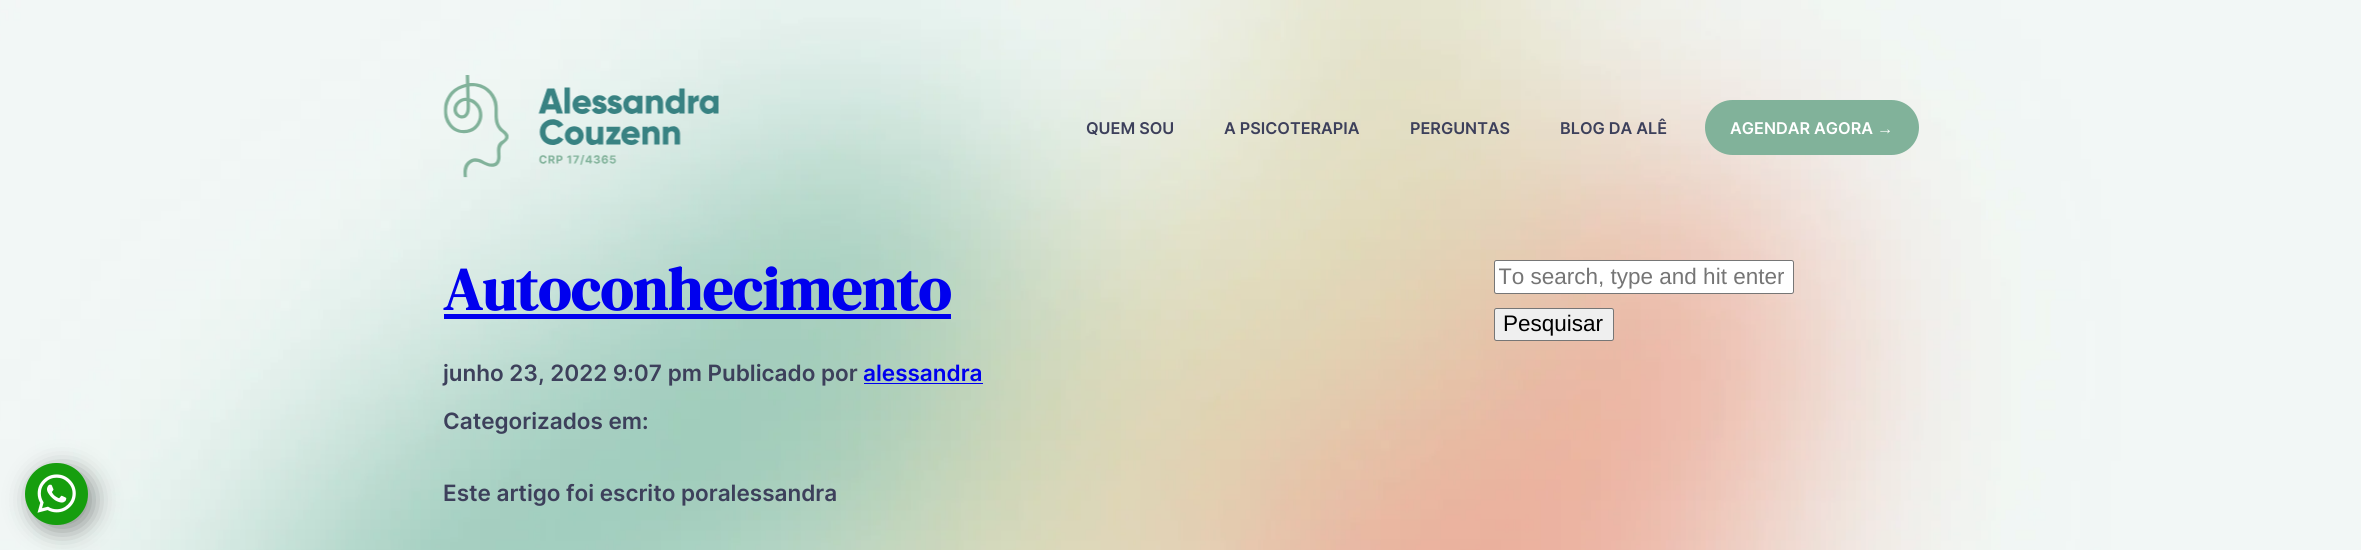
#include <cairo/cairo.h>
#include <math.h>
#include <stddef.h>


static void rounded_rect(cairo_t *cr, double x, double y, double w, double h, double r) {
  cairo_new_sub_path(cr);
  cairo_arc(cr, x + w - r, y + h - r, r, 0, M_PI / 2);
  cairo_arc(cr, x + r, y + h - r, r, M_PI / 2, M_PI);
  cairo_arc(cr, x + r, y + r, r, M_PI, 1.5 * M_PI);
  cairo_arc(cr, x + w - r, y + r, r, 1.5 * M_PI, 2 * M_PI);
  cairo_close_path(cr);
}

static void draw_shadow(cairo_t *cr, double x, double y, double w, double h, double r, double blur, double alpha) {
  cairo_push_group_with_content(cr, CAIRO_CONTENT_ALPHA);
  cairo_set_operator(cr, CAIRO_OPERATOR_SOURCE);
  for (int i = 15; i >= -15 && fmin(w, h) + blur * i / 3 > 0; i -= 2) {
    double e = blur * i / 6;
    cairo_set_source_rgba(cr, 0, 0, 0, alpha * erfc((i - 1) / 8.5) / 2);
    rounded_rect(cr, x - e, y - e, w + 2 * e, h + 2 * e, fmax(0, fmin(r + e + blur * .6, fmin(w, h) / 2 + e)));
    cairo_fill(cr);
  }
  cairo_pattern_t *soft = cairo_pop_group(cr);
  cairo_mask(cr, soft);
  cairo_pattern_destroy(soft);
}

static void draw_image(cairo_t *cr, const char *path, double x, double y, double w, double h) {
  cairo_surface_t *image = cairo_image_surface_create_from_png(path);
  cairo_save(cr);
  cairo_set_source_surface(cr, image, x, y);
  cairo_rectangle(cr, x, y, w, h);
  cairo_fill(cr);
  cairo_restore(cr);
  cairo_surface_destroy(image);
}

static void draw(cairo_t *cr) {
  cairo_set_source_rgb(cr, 1, 1, 1);
  cairo_paint(cr);
  draw_image(cr, "images/1.png", 0, 0, 2361, 550);
  draw_image(cr, "images/2.png", 443, 75, 276, 103);
  cairo_set_source_rgb(cr, 129 / 255.0, 178 / 255.0, 154 / 255.0);
  rounded_rect(cr, 1705, 100, 214, 55, 27.5);
  cairo_fill(cr);
  cairo_set_source_rgb(cr, 0, 0, 0);
  draw_shadow(cr, 31, 469, 63, 62, 31, 12, 0.41);
  cairo_set_source_rgb(cr, 22 / 255.0, 158 / 255.0, 14 / 255.0);
  rounded_rect(cr, 25, 463, 63, 62, 31);
  cairo_fill(cr);
  draw_image(cr, "images/3.png", 37, 474, 39, 39);
  cairo_set_source_rgb(cr, 0, 0, 238 / 255.0);
  cairo_rectangle(cr, 444, 314, 507, 5);
  cairo_fill(cr);
  cairo_rectangle(cr, 864, 383, 119, 1);
  cairo_fill(cr);
  cairo_set_source_rgb(cr, 1, 1, 1);
  rounded_rect(cr, 1494.5, 260.5, 299, 33, 2);
  cairo_fill_preserve(cr);
  cairo_set_source_rgb(cr, 118 / 255.0, 118 / 255.0, 118 / 255.0);
  cairo_set_line_width(cr, 1);
  cairo_stroke(cr);
  cairo_set_source_rgb(cr, 239 / 255.0, 239 / 255.0, 239 / 255.0);
  rounded_rect(cr, 1494.5, 308.5, 119, 32, 2);
  cairo_fill_preserve(cr);
  cairo_set_source_rgb(cr, 118 / 255.0, 118 / 255.0, 118 / 255.0);
  cairo_stroke(cr);
  cairo_select_font_face(cr, "Inter SemiBold", CAIRO_FONT_SLANT_NORMAL, CAIRO_FONT_WEIGHT_NORMAL);
  cairo_set_font_size(cr, 16.25);
  cairo_set_source_rgb(cr, 61 / 255.0, 64 / 255.0, 91 / 255.0);
  cairo_move_to(cr, 1086, 134);
  cairo_show_text(cr, "QUEM SOU");
  cairo_move_to(cr, 1224, 134);
  cairo_show_text(cr, "A PSICOTERAPIA");
  cairo_move_to(cr, 1410, 134);
  cairo_show_text(cr, "PERGUNTAS");
  cairo_move_to(cr, 1560, 134);
  cairo_show_text(cr, "BLOG DA ALÊ");
  cairo_set_source_rgb(cr, 1, 1, 1);
  cairo_move_to(cr, 1730, 134);
  cairo_show_text(cr, "AGENDAR AGORA");
  cairo_select_font_face(cr, "Liberation Sans", CAIRO_FONT_SLANT_NORMAL, CAIRO_FONT_WEIGHT_BOLD);
  cairo_move_to(cr, 1877, 134);
  cairo_show_text(cr, "→");
  cairo_select_font_face(cr, "DM Serif Display", CAIRO_FONT_SLANT_NORMAL, CAIRO_FONT_WEIGHT_BOLD);
  cairo_set_font_size(cr, 60);
  cairo_set_source_rgb(cr, 0, 0, 238 / 255.0);
  cairo_move_to(cr, 443, 310);
  cairo_show_text(cr, "Autoconhecimento");
  cairo_select_font_face(cr, "Inter SemiBold", CAIRO_FONT_SLANT_NORMAL, CAIRO_FONT_WEIGHT_NORMAL);
  cairo_set_font_size(cr, 22.5);
  cairo_set_source_rgb(cr, 61 / 255.0, 64 / 255.0, 91 / 255.0);
  cairo_move_to(cr, 443, 381);
  cairo_show_text(cr, "junho 23, 2022 9:07 pm Publicado por");
  cairo_set_source_rgb(cr, 0, 0, 238 / 255.0);
  cairo_move_to(cr, 863, 381);
  cairo_show_text(cr, "alessandra");
  cairo_set_source_rgb(cr, 61 / 255.0, 64 / 255.0, 91 / 255.0);
  cairo_move_to(cr, 443, 429);
  cairo_show_text(cr, "Categorizados em:");
  cairo_move_to(cr, 443, 501);
  cairo_show_text(cr, "Este artigo foi escrito poralessandra");
  cairo_save(cr);
  cairo_rectangle(cr, 1499, 264, 285, 26);
  cairo_clip(cr);
  cairo_select_font_face(cr, "Liberation Sans", CAIRO_FONT_SLANT_NORMAL, CAIRO_FONT_WEIGHT_NORMAL);
  cairo_set_source_rgb(cr, 117 / 255.0, 117 / 255.0, 117 / 255.0);
  cairo_move_to(cr, 1498, 284);
  cairo_show_text(cr, "To search, type and hit enter");
  cairo_restore(cr);
  cairo_select_font_face(cr, "Liberation Sans", CAIRO_FONT_SLANT_NORMAL, CAIRO_FONT_WEIGHT_NORMAL);
  cairo_set_source_rgb(cr, 0, 0, 0);
  cairo_move_to(cr, 1503, 331);
  cairo_show_text(cr, "Pesquisar");
}

int main(void) {
  cairo_surface_t *surface = cairo_image_surface_create(CAIRO_FORMAT_RGB24, 2361, 550);
  cairo_t *cr = cairo_create(surface);
  cairo_font_options_t *options = cairo_font_options_create();
  cairo_font_options_set_hint_metrics(options, CAIRO_HINT_METRICS_OFF);
  cairo_font_options_set_hint_style(options, CAIRO_HINT_STYLE_NONE);
  cairo_set_font_options(cr, options);
  cairo_set_miter_limit(cr, 4);
  draw(cr);
  cairo_surface_write_to_png(surface, "out.png");
  cairo_font_options_destroy(options);
  cairo_destroy(cr);
  cairo_surface_destroy(surface);
  return 0;
}
